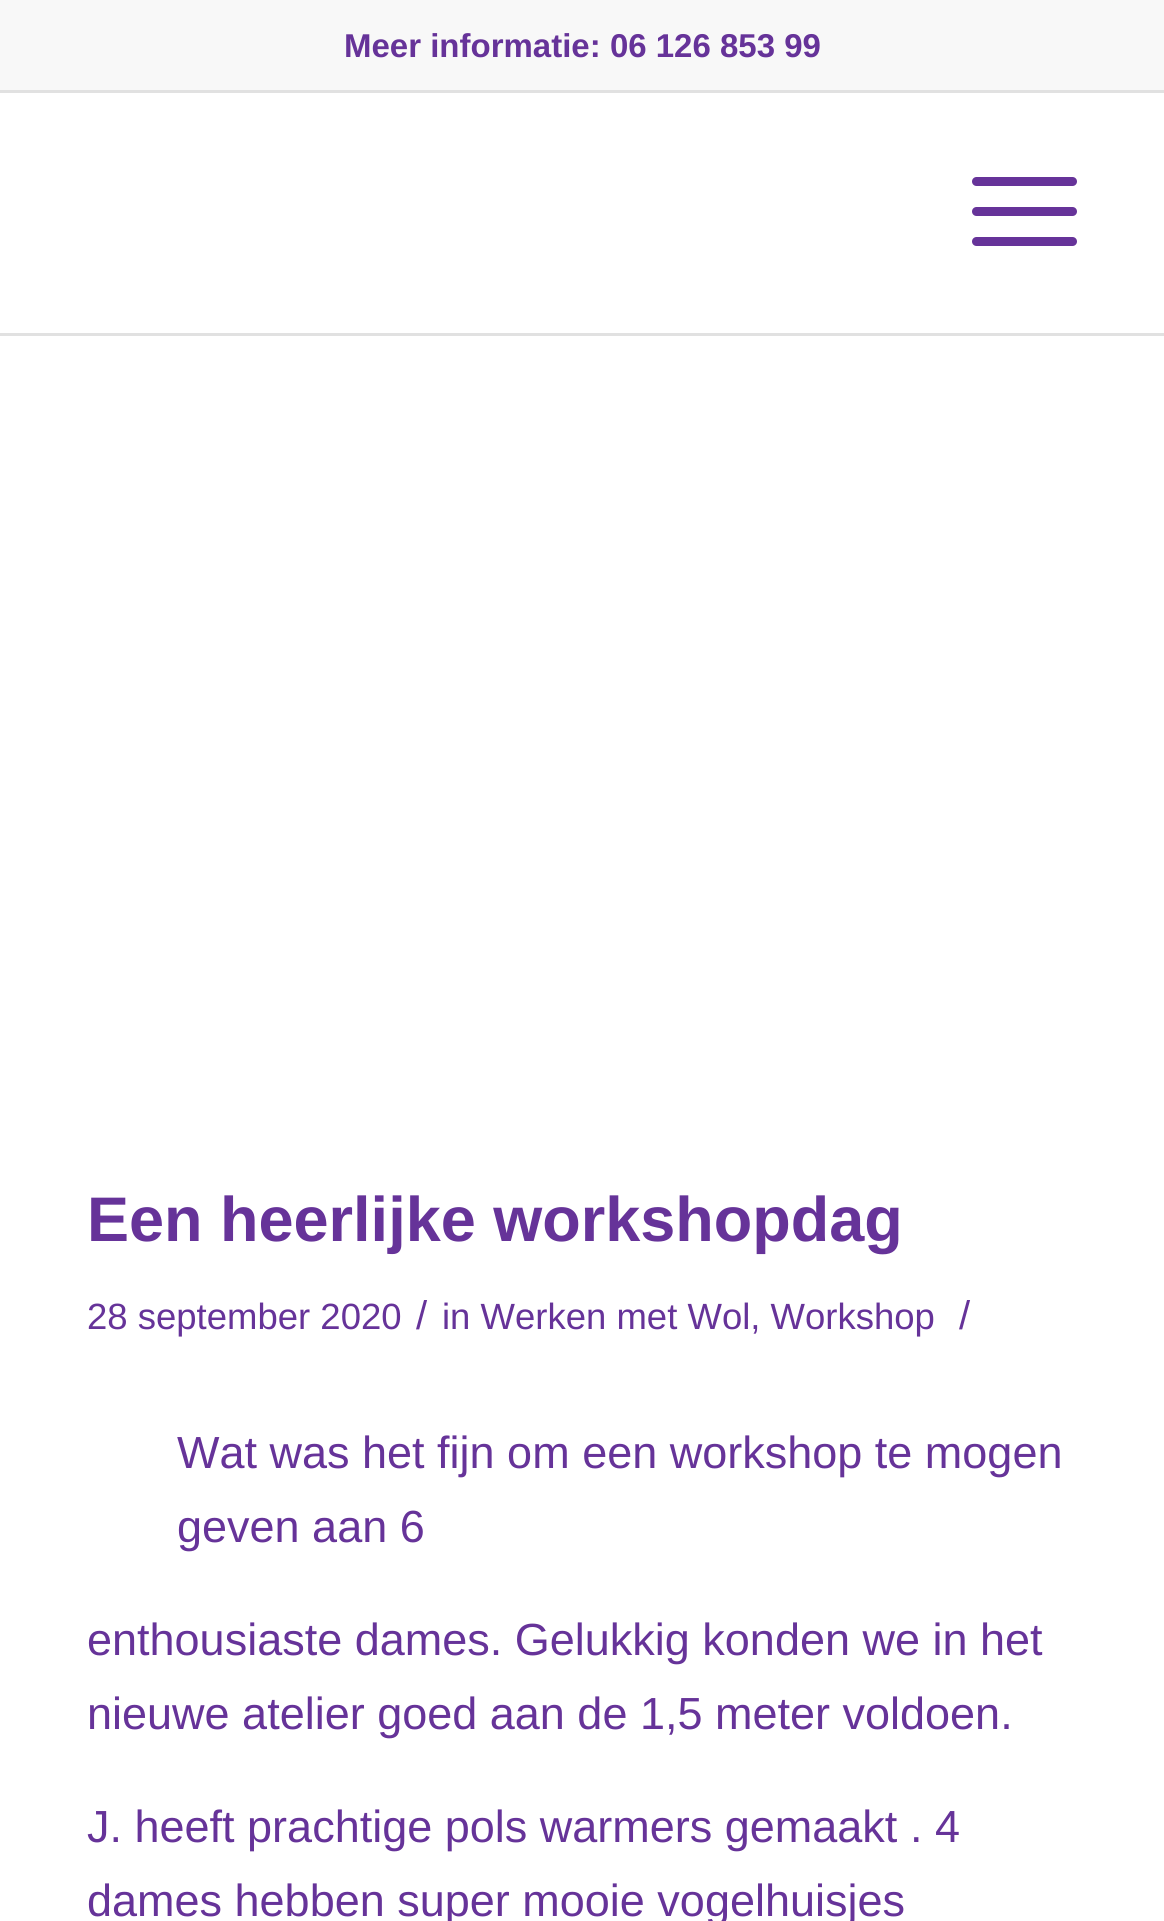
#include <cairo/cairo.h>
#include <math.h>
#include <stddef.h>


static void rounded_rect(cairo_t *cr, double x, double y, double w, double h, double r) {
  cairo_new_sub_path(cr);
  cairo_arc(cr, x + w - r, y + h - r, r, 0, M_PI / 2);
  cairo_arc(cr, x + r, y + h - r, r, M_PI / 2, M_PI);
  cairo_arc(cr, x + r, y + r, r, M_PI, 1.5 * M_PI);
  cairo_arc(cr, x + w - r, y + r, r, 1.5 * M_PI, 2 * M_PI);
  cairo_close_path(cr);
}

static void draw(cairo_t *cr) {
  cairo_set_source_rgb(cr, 1, 1, 1);
  cairo_paint(cr);
  cairo_set_source_rgb(cr, 248 / 255.0, 248 / 255.0, 248 / 255.0);
  cairo_rectangle(cr, 0, 0, 1164, 90);
  cairo_fill(cr);
  cairo_set_source_rgb(cr, 225 / 255.0, 225 / 255.0, 225 / 255.0);
  cairo_rectangle(cr, 0, 90, 1164, 3);
  cairo_fill(cr);
  cairo_rectangle(cr, 0, 333, 1164, 3);
  cairo_fill(cr);
  cairo_set_source_rgb(cr, 102 / 255.0, 51 / 255.0, 153 / 255.0);
  rounded_rect(cr, 972, 207, 105, 9, 4.5);
  cairo_fill(cr);
  rounded_rect(cr, 972, 177, 105, 9, 4.5);
  cairo_fill(cr);
  rounded_rect(cr, 972, 237, 105, 9, 4.5);
  cairo_fill(cr);
  cairo_select_font_face(cr, "Liberation Sans", CAIRO_FONT_SLANT_NORMAL, CAIRO_FONT_WEIGHT_BOLD);
  cairo_set_font_size(cr, 33);
  cairo_move_to(cr, 344, 57);
  cairo_show_text(cr, "Meer informatie: 06 126 853 99");
  cairo_set_font_size(cr, 63);
  cairo_move_to(cr, 87, 1241);
  cairo_show_text(cr, "Een heerlijke workshopdag");
  cairo_select_font_face(cr, "Liberation Sans", CAIRO_FONT_SLANT_NORMAL, CAIRO_FONT_WEIGHT_NORMAL);
  cairo_set_font_size(cr, 36.5);
  cairo_move_to(cr, 87, 1329);
  cairo_show_text(cr, "28 september 2020");
  cairo_set_font_size(cr, 40);
  cairo_move_to(cr, 416, 1329);
  cairo_show_text(cr, "/");
  cairo_set_font_size(cr, 36.5);
  cairo_move_to(cr, 442, 1329);
  cairo_show_text(cr, "in Werken met Wol, Workshop");
  cairo_set_font_size(cr, 40);
  cairo_move_to(cr, 959, 1329);
  cairo_show_text(cr, "/");
  cairo_set_font_size(cr, 45);
  cairo_move_to(cr, 177, 1468);
  cairo_show_text(cr, "Wat was het fijn om een workshop te mogen");
  cairo_move_to(cr, 177, 1542);
  cairo_show_text(cr, "geven aan 6");
  cairo_move_to(cr, 87, 1655);
  cairo_show_text(cr, "enthousiaste dames. Gelukkig konden we in het");
  cairo_move_to(cr, 87, 1729);
  cairo_show_text(cr, "nieuwe atelier goed aan de 1,5 meter voldoen.");
  cairo_move_to(cr, 87, 1842);
  cairo_show_text(cr, "J. heeft prachtige pols warmers gemaakt . 4");
  cairo_move_to(cr, 87, 1916);
  cairo_show_text(cr, "dames hebben super mooie vogelhuisjes");
}

int main(void) {
  cairo_surface_t *surface = cairo_image_surface_create(CAIRO_FORMAT_RGB24, 1164, 1921);
  cairo_t *cr = cairo_create(surface);
  cairo_font_options_t *options = cairo_font_options_create();
  cairo_font_options_set_hint_metrics(options, CAIRO_HINT_METRICS_OFF);
  cairo_font_options_set_hint_style(options, CAIRO_HINT_STYLE_NONE);
  cairo_set_font_options(cr, options);
  cairo_set_miter_limit(cr, 4);
  draw(cr);
  cairo_surface_write_to_png(surface, "out.png");
  cairo_font_options_destroy(options);
  cairo_destroy(cr);
  cairo_surface_destroy(surface);
  return 0;
}
